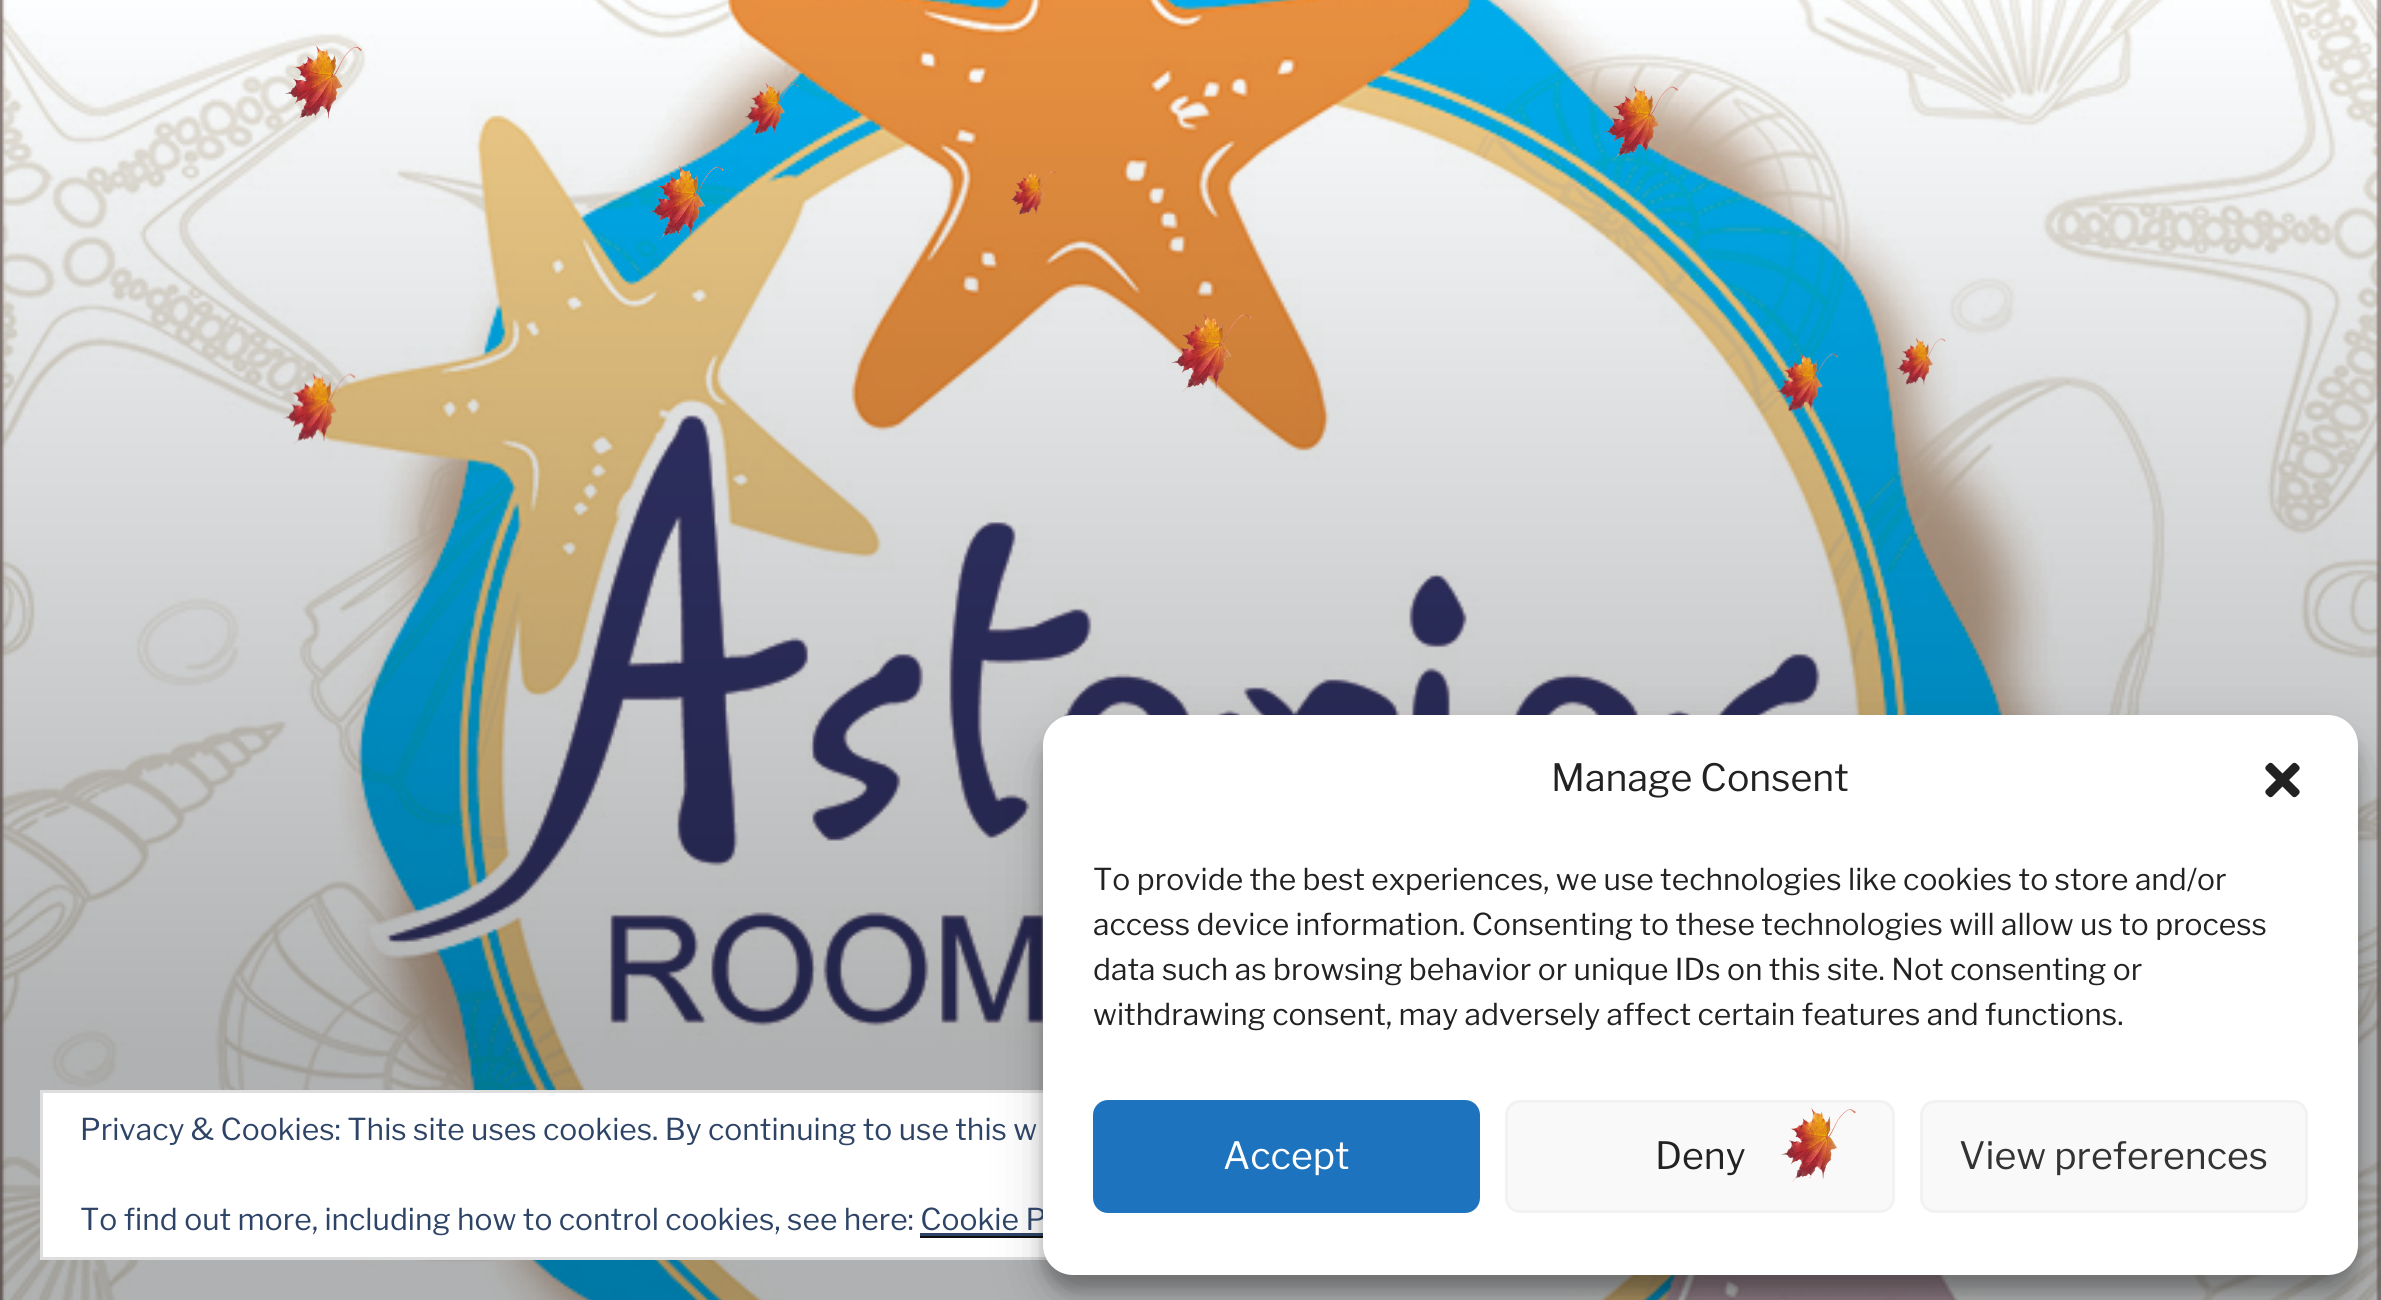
#include <cairo/cairo.h>
#include <math.h>
#include <stddef.h>


static void rounded_rect(cairo_t *cr, double x, double y, double w, double h, double r) {
  cairo_new_sub_path(cr);
  cairo_arc(cr, x + w - r, y + h - r, r, 0, M_PI / 2);
  cairo_arc(cr, x + r, y + h - r, r, M_PI / 2, M_PI);
  cairo_arc(cr, x + r, y + r, r, M_PI, 1.5 * M_PI);
  cairo_arc(cr, x + w - r, y + r, r, 1.5 * M_PI, 2 * M_PI);
  cairo_close_path(cr);
}

static void draw_shadow(cairo_t *cr, double x, double y, double w, double h, double r, double blur, double alpha) {
  cairo_push_group_with_content(cr, CAIRO_CONTENT_ALPHA);
  cairo_set_operator(cr, CAIRO_OPERATOR_SOURCE);
  for (int i = 15; i >= -15 && fmin(w, h) + blur * i / 3 > 0; i -= 2) {
    double e = blur * i / 6;
    cairo_set_source_rgba(cr, 0, 0, 0, alpha * erfc((i - 1) / 8.5) / 2);
    rounded_rect(cr, x - e, y - e, w + 2 * e, h + 2 * e, fmax(0, fmin(r + e + blur * .6, fmin(w, h) / 2 + e)));
    cairo_fill(cr);
  }
  cairo_pattern_t *soft = cairo_pop_group(cr);
  cairo_mask(cr, soft);
  cairo_pattern_destroy(soft);
}

static void draw_image(cairo_t *cr, const char *path, double x, double y, double w, double h) {
  cairo_surface_t *image = cairo_image_surface_create_from_png(path);
  cairo_save(cr);
  cairo_set_source_surface(cr, image, x, y);
  cairo_rectangle(cr, x, y, w, h);
  cairo_fill(cr);
  cairo_restore(cr);
  cairo_surface_destroy(image);
}

static void draw(cairo_t *cr) {
  cairo_set_source_rgb(cr, 1, 1, 1);
  cairo_paint(cr);
  draw_image(cr, "images/1.png", 0, 0, 2381, 1300);
  draw_image(cr, "images/2.png", 284, 45, 78, 78);
  draw_image(cr, "images/3.png", 744, 82, 55, 56);
  draw_image(cr, "images/4.png", 1603, 85, 76, 75);
  draw_image(cr, "images/5.png", 648, 165, 76, 75);
  draw_image(cr, "images/6.png", 1010, 170, 47, 47);
  draw_image(cr, "images/7.png", 283, 372, 73, 73);
  draw_image(cr, "images/8.png", 1171, 312, 80, 81);
  draw_image(cr, "images/9.png", 1775, 352, 63, 60);
  draw_image(cr, "images/10.png", 1896, 337, 50, 49);
  cairo_set_source_rgb(cr, 1, 1, 1);
  cairo_rectangle(cr, 43, 1093, 1003, 164);
  cairo_fill(cr);
  cairo_rectangle(cr, 41.5, 1091.5, 2300, 167);
  cairo_set_source_rgb(cr, 222 / 255.0, 222 / 255.0, 222 / 255.0);
  cairo_set_line_width(cr, 3);
  cairo_stroke(cr);
  cairo_set_source_rgb(cr, 46 / 255.0, 68 / 255.0, 103 / 255.0);
  cairo_rectangle(cr, 920, 1233, 123, 3);
  cairo_fill(cr);
  cairo_set_source_rgb(cr, 15 / 255.0, 15 / 255.0, 15 / 255.0);
  cairo_rectangle(cr, 920, 1236, 123, 2);
  cairo_fill(cr);
  cairo_set_source_rgb(cr, 0, 0, 0);
  draw_shadow(cr, 1043, 730, 1315, 560, 30, 7.5, 0.23);
  draw_shadow(cr, 1043, 740, 1315, 560, 30, 25, 0.19);
  cairo_select_font_face(cr, "Libre Franklin Thin", CAIRO_FONT_SLANT_NORMAL, CAIRO_FONT_WEIGHT_NORMAL);
  cairo_set_font_size(cr, 30);
  cairo_set_source_rgb(cr, 46 / 255.0, 68 / 255.0, 103 / 255.0);
  cairo_move_to(cr, 80, 1140);
  cairo_show_text(cr, "Privacy & Cookies: This site uses cookies. By continuing to use this w");
  cairo_move_to(cr, 80, 1230);
  cairo_show_text(cr, "To find out more, including how to control cookies, see here: Cookie P");
  cairo_set_source_rgb(cr, 1, 1, 1);
  rounded_rect(cr, 1043, 715, 1315, 560, 30);
  cairo_fill(cr);
  cairo_set_source_rgb(cr, 34 / 255.0, 34 / 255.0, 34 / 255.0);
  cairo_move_to(cr, 1093, 1025);
  cairo_show_text(cr, "withdrawing consent, may adversely affect certain features and functions.");
  cairo_move_to(cr, 1093, 980);
  cairo_show_text(cr, "data such as browsing behavior or unique IDs on this site. Not consenting or");
  cairo_move_to(cr, 1093, 935);
  cairo_show_text(cr, "access device information. Consenting to these technologies will allow us to process");
  cairo_move_to(cr, 1093, 890);
  cairo_show_text(cr, "To provide the best experiences, we use technologies like cookies to store and/or");
  draw_image(cr, "images/11.png", 2265, 762, 35, 36);
  cairo_set_source_rgb(cr, 249 / 255.0, 249 / 255.0, 249 / 255.0);
  rounded_rect(cr, 1921.5, 1101.5, 385, 110, 13.5);
  cairo_fill_preserve(cr);
  cairo_set_source_rgb(cr, 242 / 255.0, 242 / 255.0, 242 / 255.0);
  cairo_stroke(cr);
  cairo_set_font_size(cr, 37.5);
  cairo_set_source_rgb(cr, 51 / 255.0, 51 / 255.0, 51 / 255.0);
  cairo_move_to(cr, 1959, 1169);
  cairo_show_text(cr, "View preferences");
  cairo_set_source_rgb(cr, 249 / 255.0, 249 / 255.0, 249 / 255.0);
  rounded_rect(cr, 1506.5, 1101.5, 387, 110, 13.5);
  cairo_fill_preserve(cr);
  cairo_set_source_rgb(cr, 242 / 255.0, 242 / 255.0, 242 / 255.0);
  cairo_stroke(cr);
  cairo_set_source_rgb(cr, 34 / 255.0, 34 / 255.0, 34 / 255.0);
  cairo_move_to(cr, 1655, 1169);
  cairo_show_text(cr, "Deny");
  cairo_set_source_rgb(cr, 30 / 255.0, 115 / 255.0, 190 / 255.0);
  rounded_rect(cr, 1094.5, 1101.5, 384, 110, 13.5);
  cairo_fill_preserve(cr);
  cairo_stroke(cr);
  cairo_set_source_rgb(cr, 1, 1, 1);
  cairo_move_to(cr, 1223, 1169);
  cairo_show_text(cr, "Accept");
  cairo_set_source_rgb(cr, 34 / 255.0, 34 / 255.0, 34 / 255.0);
  cairo_move_to(cr, 1551, 791);
  cairo_show_text(cr, "Manage Consent");
  draw_image(cr, "images/12.png", 1780, 1107, 76, 76);
}

int main(void) {
  cairo_surface_t *surface = cairo_image_surface_create(CAIRO_FORMAT_RGB24, 2381, 1300);
  cairo_t *cr = cairo_create(surface);
  cairo_font_options_t *options = cairo_font_options_create();
  cairo_font_options_set_hint_metrics(options, CAIRO_HINT_METRICS_OFF);
  cairo_font_options_set_hint_style(options, CAIRO_HINT_STYLE_NONE);
  cairo_set_font_options(cr, options);
  cairo_set_miter_limit(cr, 4);
  draw(cr);
  cairo_surface_write_to_png(surface, "out.png");
  cairo_font_options_destroy(options);
  cairo_destroy(cr);
  cairo_surface_destroy(surface);
  return 0;
}
